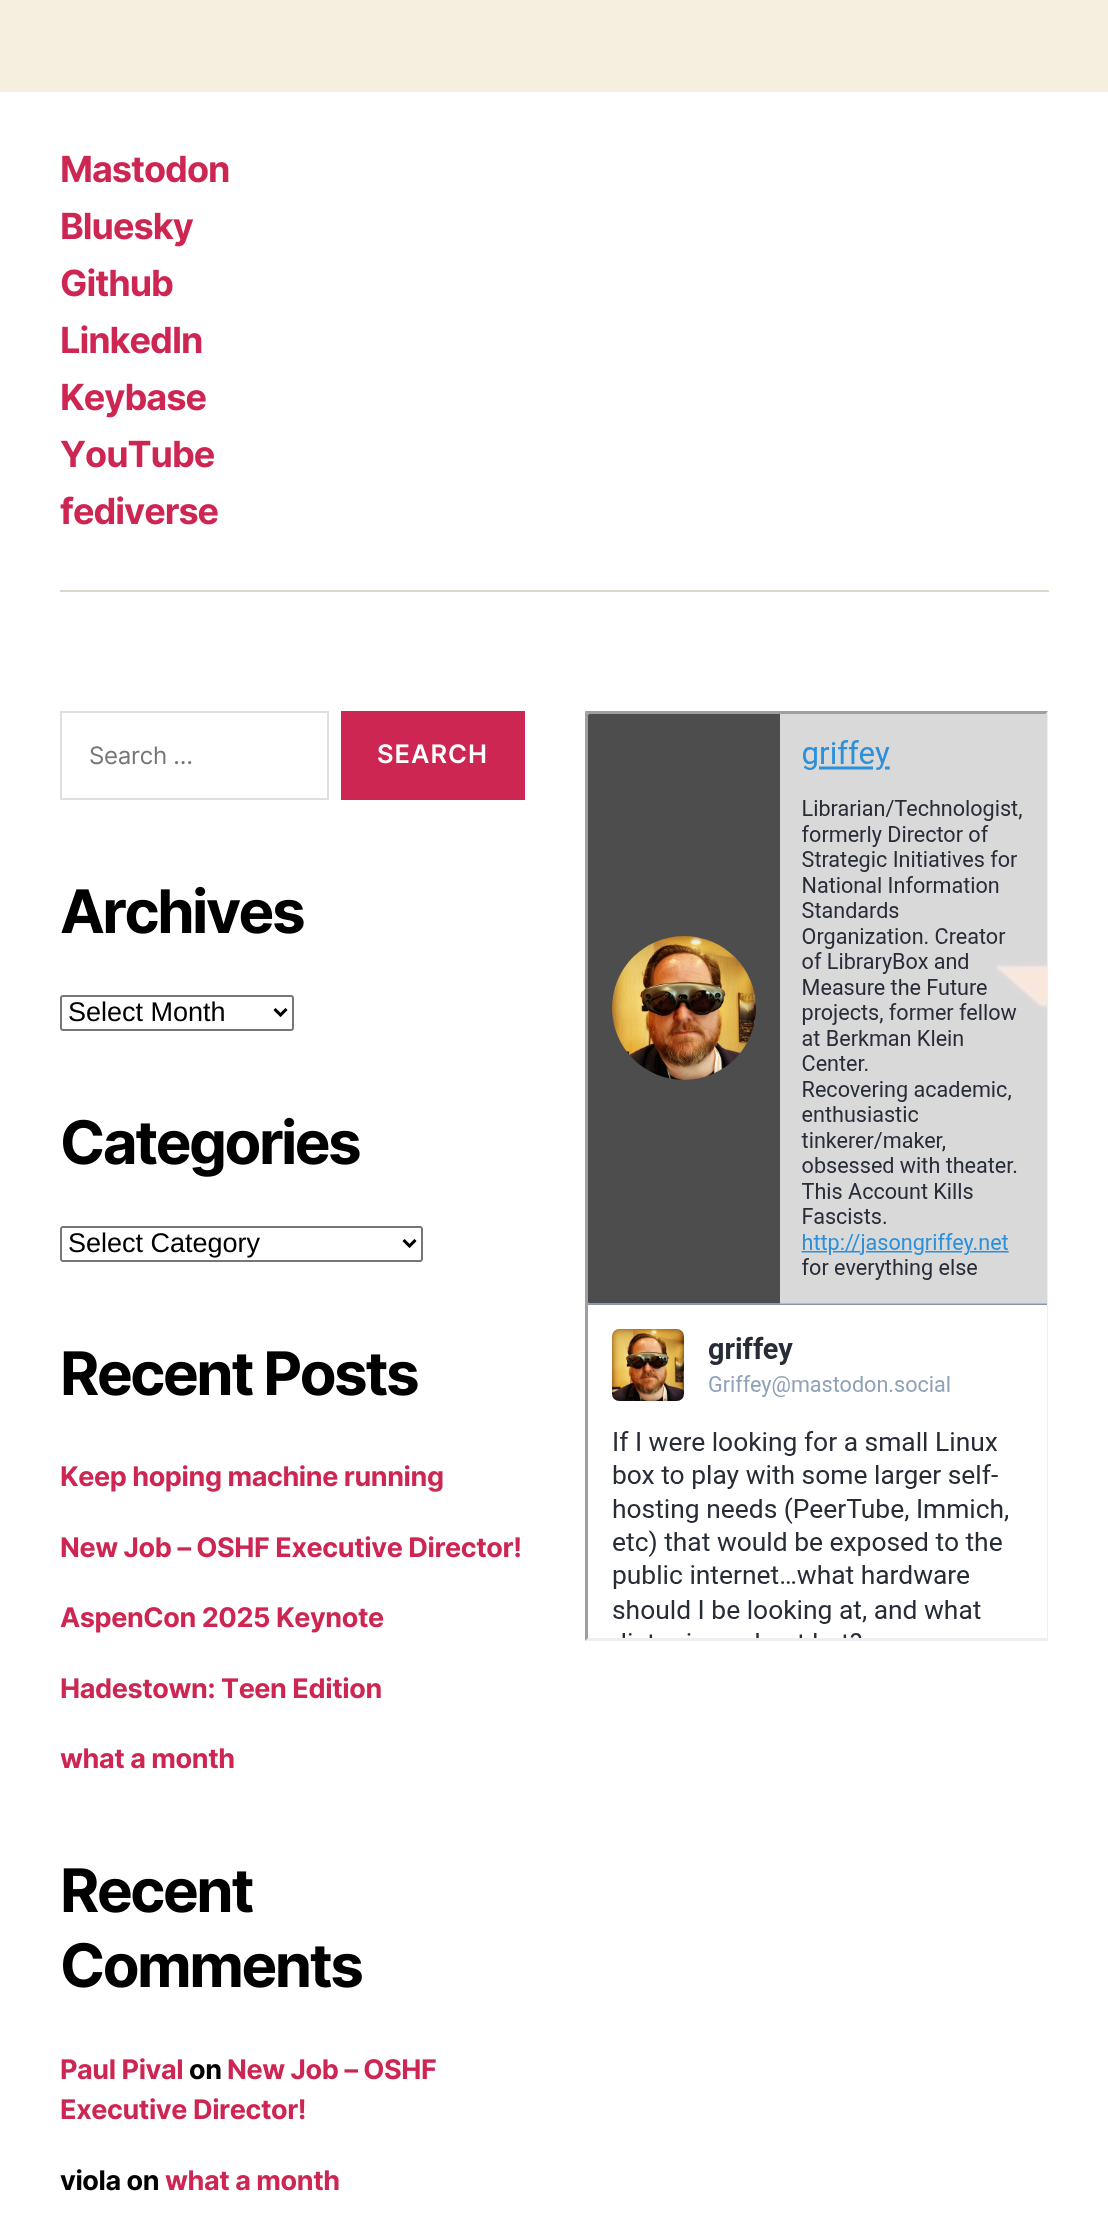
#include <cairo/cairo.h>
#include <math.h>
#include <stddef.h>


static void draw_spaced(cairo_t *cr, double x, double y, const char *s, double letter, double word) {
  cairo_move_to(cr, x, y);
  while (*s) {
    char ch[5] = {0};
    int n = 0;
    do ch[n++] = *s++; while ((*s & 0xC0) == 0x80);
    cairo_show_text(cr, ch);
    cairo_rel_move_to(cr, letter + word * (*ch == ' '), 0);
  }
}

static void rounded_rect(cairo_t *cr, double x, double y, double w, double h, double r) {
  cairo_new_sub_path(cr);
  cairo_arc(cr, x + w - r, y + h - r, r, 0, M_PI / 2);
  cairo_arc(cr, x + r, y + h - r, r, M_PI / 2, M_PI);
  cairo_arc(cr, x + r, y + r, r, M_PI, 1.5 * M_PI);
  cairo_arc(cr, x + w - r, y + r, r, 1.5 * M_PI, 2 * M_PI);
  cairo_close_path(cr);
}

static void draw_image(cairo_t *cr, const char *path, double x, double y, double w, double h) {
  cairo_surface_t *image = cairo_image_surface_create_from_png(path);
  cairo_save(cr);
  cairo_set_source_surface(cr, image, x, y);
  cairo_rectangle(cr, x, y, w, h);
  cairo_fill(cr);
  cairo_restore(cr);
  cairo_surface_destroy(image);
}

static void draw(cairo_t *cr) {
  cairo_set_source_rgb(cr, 245 / 255.0, 239 / 255.0, 224 / 255.0);
  cairo_paint(cr);
  cairo_set_source_rgb(cr, 1, 1, 1);
  cairo_rectangle(cr, 0, 92, 1108, 2121);
  cairo_fill(cr);
  cairo_set_source_rgb(cr, 220 / 255.0, 215 / 255.0, 202 / 255.0);
  cairo_rectangle(cr, 60, 590, 989, 2);
  cairo_fill(cr);
  cairo_rectangle(cr, 61, 712, 267, 87);
  cairo_set_source_rgb(cr, 222 / 255.0, 223 / 255.0, 223 / 255.0);
  cairo_stroke(cr);
  cairo_set_source_rgb(cr, 205 / 255.0, 38 / 255.0, 83 / 255.0);
  cairo_rectangle(cr, 341, 711, 184, 89);
  cairo_fill(cr);
  rounded_rect(cr, 61, 996, 232, 34, 2);
  cairo_set_source_rgb(cr, 118 / 255.0, 118 / 255.0, 118 / 255.0);
  cairo_stroke(cr);
  cairo_new_path(cr);
  cairo_move_to(cr, 274.5, 1009);
  cairo_line_to(cr, 280.5, 1015);
  cairo_line_to(cr, 286.5, 1009);
  cairo_set_source_rgb(cr, 0, 0, 0);
  cairo_set_line_width(cr, 3);
  cairo_stroke(cr);
  rounded_rect(cr, 61, 1227, 361, 34, 2);
  cairo_set_source_rgb(cr, 118 / 255.0, 118 / 255.0, 118 / 255.0);
  cairo_set_line_width(cr, 2);
  cairo_stroke(cr);
  cairo_new_path(cr);
  cairo_move_to(cr, 403.5, 1240);
  cairo_line_to(cr, 409.5, 1246);
  cairo_line_to(cr, 415.5, 1240);
  cairo_set_source_rgb(cr, 0, 0, 0);
  cairo_set_line_width(cr, 3);
  cairo_stroke(cr);
  cairo_set_source_rgb(cr, 159 / 255.0, 159 / 255.0, 159 / 255.0);
  cairo_new_path(cr);
  cairo_move_to(cr, 585, 711);
  cairo_line_to(cr, 1048, 711);
  cairo_line_to(cr, 1046, 714);
  cairo_line_to(cr, 588, 714);
  cairo_close_path(cr);
  cairo_fill(cr);
  cairo_set_source_rgb(cr, 238 / 255.0, 238 / 255.0, 238 / 255.0);
  cairo_new_path(cr);
  cairo_move_to(cr, 1048, 711);
  cairo_line_to(cr, 1048, 1641);
  cairo_line_to(cr, 1046, 1638);
  cairo_line_to(cr, 1046, 714);
  cairo_close_path(cr);
  cairo_fill(cr);
  cairo_new_path(cr);
  cairo_move_to(cr, 1048, 1641);
  cairo_line_to(cr, 585, 1641);
  cairo_line_to(cr, 588, 1638);
  cairo_line_to(cr, 1046, 1638);
  cairo_close_path(cr);
  cairo_fill(cr);
  cairo_set_source_rgb(cr, 159 / 255.0, 159 / 255.0, 159 / 255.0);
  cairo_new_path(cr);
  cairo_move_to(cr, 585, 1641);
  cairo_line_to(cr, 585, 711);
  cairo_line_to(cr, 588, 714);
  cairo_line_to(cr, 588, 1638);
  cairo_close_path(cr);
  cairo_fill(cr);
  draw_image(cr, "images/1.png", 588, 714, 459, 924);
  cairo_select_font_face(cr, "Inter", CAIRO_FONT_SLANT_NORMAL, CAIRO_FONT_WEIGHT_BOLD);
  cairo_set_font_size(cr, 36);
  cairo_set_source_rgb(cr, 205 / 255.0, 38 / 255.0, 83 / 255.0);
  draw_spaced(cr, 60, 182, "Mastodon", -1, 0);
  draw_spaced(cr, 60, 239, "Bluesky", -1, 0);
  draw_spaced(cr, 60, 296, "Github", -1, 0);
  draw_spaced(cr, 60, 353, "LinkedIn", -1, 0);
  draw_spaced(cr, 60, 410, "Keybase", -1, 0);
  draw_spaced(cr, 60, 467, "YouTube", -1, 0);
  draw_spaced(cr, 60, 524, "fediverse", -1, 0);
  cairo_select_font_face(cr, "Inter", CAIRO_FONT_SLANT_NORMAL, CAIRO_FONT_WEIGHT_NORMAL);
  cairo_set_font_size(cr, 24);
  cairo_set_source_rgb(cr, 117 / 255.0, 117 / 255.0, 117 / 255.0);
  draw_spaced(cr, 89, 764, "Search …", -0.25, 0);
  cairo_select_font_face(cr, "Inter SemiBold", CAIRO_FONT_SLANT_NORMAL, CAIRO_FONT_WEIGHT_NORMAL);
  cairo_set_font_size(cr, 25.5);
  cairo_set_source_rgb(cr, 1, 1, 1);
  draw_spaced(cr, 377, 763, "SEARCH", 1, 0);
  cairo_select_font_face(cr, "Inter", CAIRO_FONT_SLANT_NORMAL, CAIRO_FONT_WEIGHT_BOLD);
  cairo_set_font_size(cr, 60);
  cairo_set_source_rgb(cr, 0, 0, 0);
  draw_spaced(cr, 60, 933, "Archives", -2.5, 0);
  cairo_select_font_face(cr, "Liberation Sans", CAIRO_FONT_SLANT_NORMAL, CAIRO_FONT_WEIGHT_NORMAL);
  cairo_set_font_size(cr, 27);
  cairo_move_to(cr, 68, 1021);
  cairo_show_text(cr, "Select Month");
  cairo_select_font_face(cr, "Inter", CAIRO_FONT_SLANT_NORMAL, CAIRO_FONT_WEIGHT_BOLD);
  cairo_set_font_size(cr, 60);
  draw_spaced(cr, 60, 1164, "Categories", -2.5, 0);
  cairo_select_font_face(cr, "Liberation Sans", CAIRO_FONT_SLANT_NORMAL, CAIRO_FONT_WEIGHT_NORMAL);
  cairo_set_font_size(cr, 27);
  cairo_move_to(cr, 68, 1252);
  cairo_show_text(cr, "Select Category");
  cairo_select_font_face(cr, "Inter", CAIRO_FONT_SLANT_NORMAL, CAIRO_FONT_WEIGHT_BOLD);
  cairo_set_font_size(cr, 60);
  draw_spaced(cr, 60, 1395, "Recent Posts", -2.5, 0);
  cairo_set_font_size(cr, 27);
  cairo_set_source_rgb(cr, 205 / 255.0, 38 / 255.0, 83 / 255.0);
  draw_spaced(cr, 60, 1486, "Keep hoping machine running", -0.4, 0);
  draw_spaced(cr, 60, 1557, "New Job – OSHF Executive Director!", -0.4, 0);
  draw_spaced(cr, 60, 1627, "AspenCon 2025 Keynote", -0.4, 0);
  draw_spaced(cr, 60, 1698, "Hadestown: Teen Edition", -0.4, 0);
  draw_spaced(cr, 60, 1768, "what a month", -0.4, 0);
  cairo_set_font_size(cr, 60);
  cairo_set_source_rgb(cr, 0, 0, 0);
  draw_spaced(cr, 60, 1912, "Recent", -2.5, 0);
  draw_spaced(cr, 60, 1987, "Comments", -2.5, 0);
  cairo_set_font_size(cr, 27);
  cairo_set_source_rgb(cr, 205 / 255.0, 38 / 255.0, 83 / 255.0);
  draw_spaced(cr, 60, 2079, "Paul Pival", -0.4, 0);
  cairo_set_source_rgb(cr, 0, 0, 0);
  draw_spaced(cr, 189, 2079, "on", -0.4, 0);
  cairo_set_source_rgb(cr, 205 / 255.0, 38 / 255.0, 83 / 255.0);
  draw_spaced(cr, 227, 2079, "New Job – OSHF", -0.4, 0);
  draw_spaced(cr, 60, 2119, "Executive Director!", -0.4, 0);
  cairo_set_source_rgb(cr, 0, 0, 0);
  draw_spaced(cr, 60, 2190, "viola on", -0.4, 0);
  cairo_set_source_rgb(cr, 205 / 255.0, 38 / 255.0, 83 / 255.0);
  draw_spaced(cr, 165, 2190, "what a month", -0.4, 0);
}

int main(void) {
  cairo_surface_t *surface = cairo_image_surface_create(CAIRO_FORMAT_RGB24, 1108, 2213);
  cairo_t *cr = cairo_create(surface);
  cairo_font_options_t *options = cairo_font_options_create();
  cairo_font_options_set_hint_metrics(options, CAIRO_HINT_METRICS_OFF);
  cairo_font_options_set_hint_style(options, CAIRO_HINT_STYLE_NONE);
  cairo_set_font_options(cr, options);
  cairo_set_miter_limit(cr, 4);
  draw(cr);
  cairo_surface_write_to_png(surface, "out.png");
  cairo_font_options_destroy(options);
  cairo_destroy(cr);
  cairo_surface_destroy(surface);
  return 0;
}
